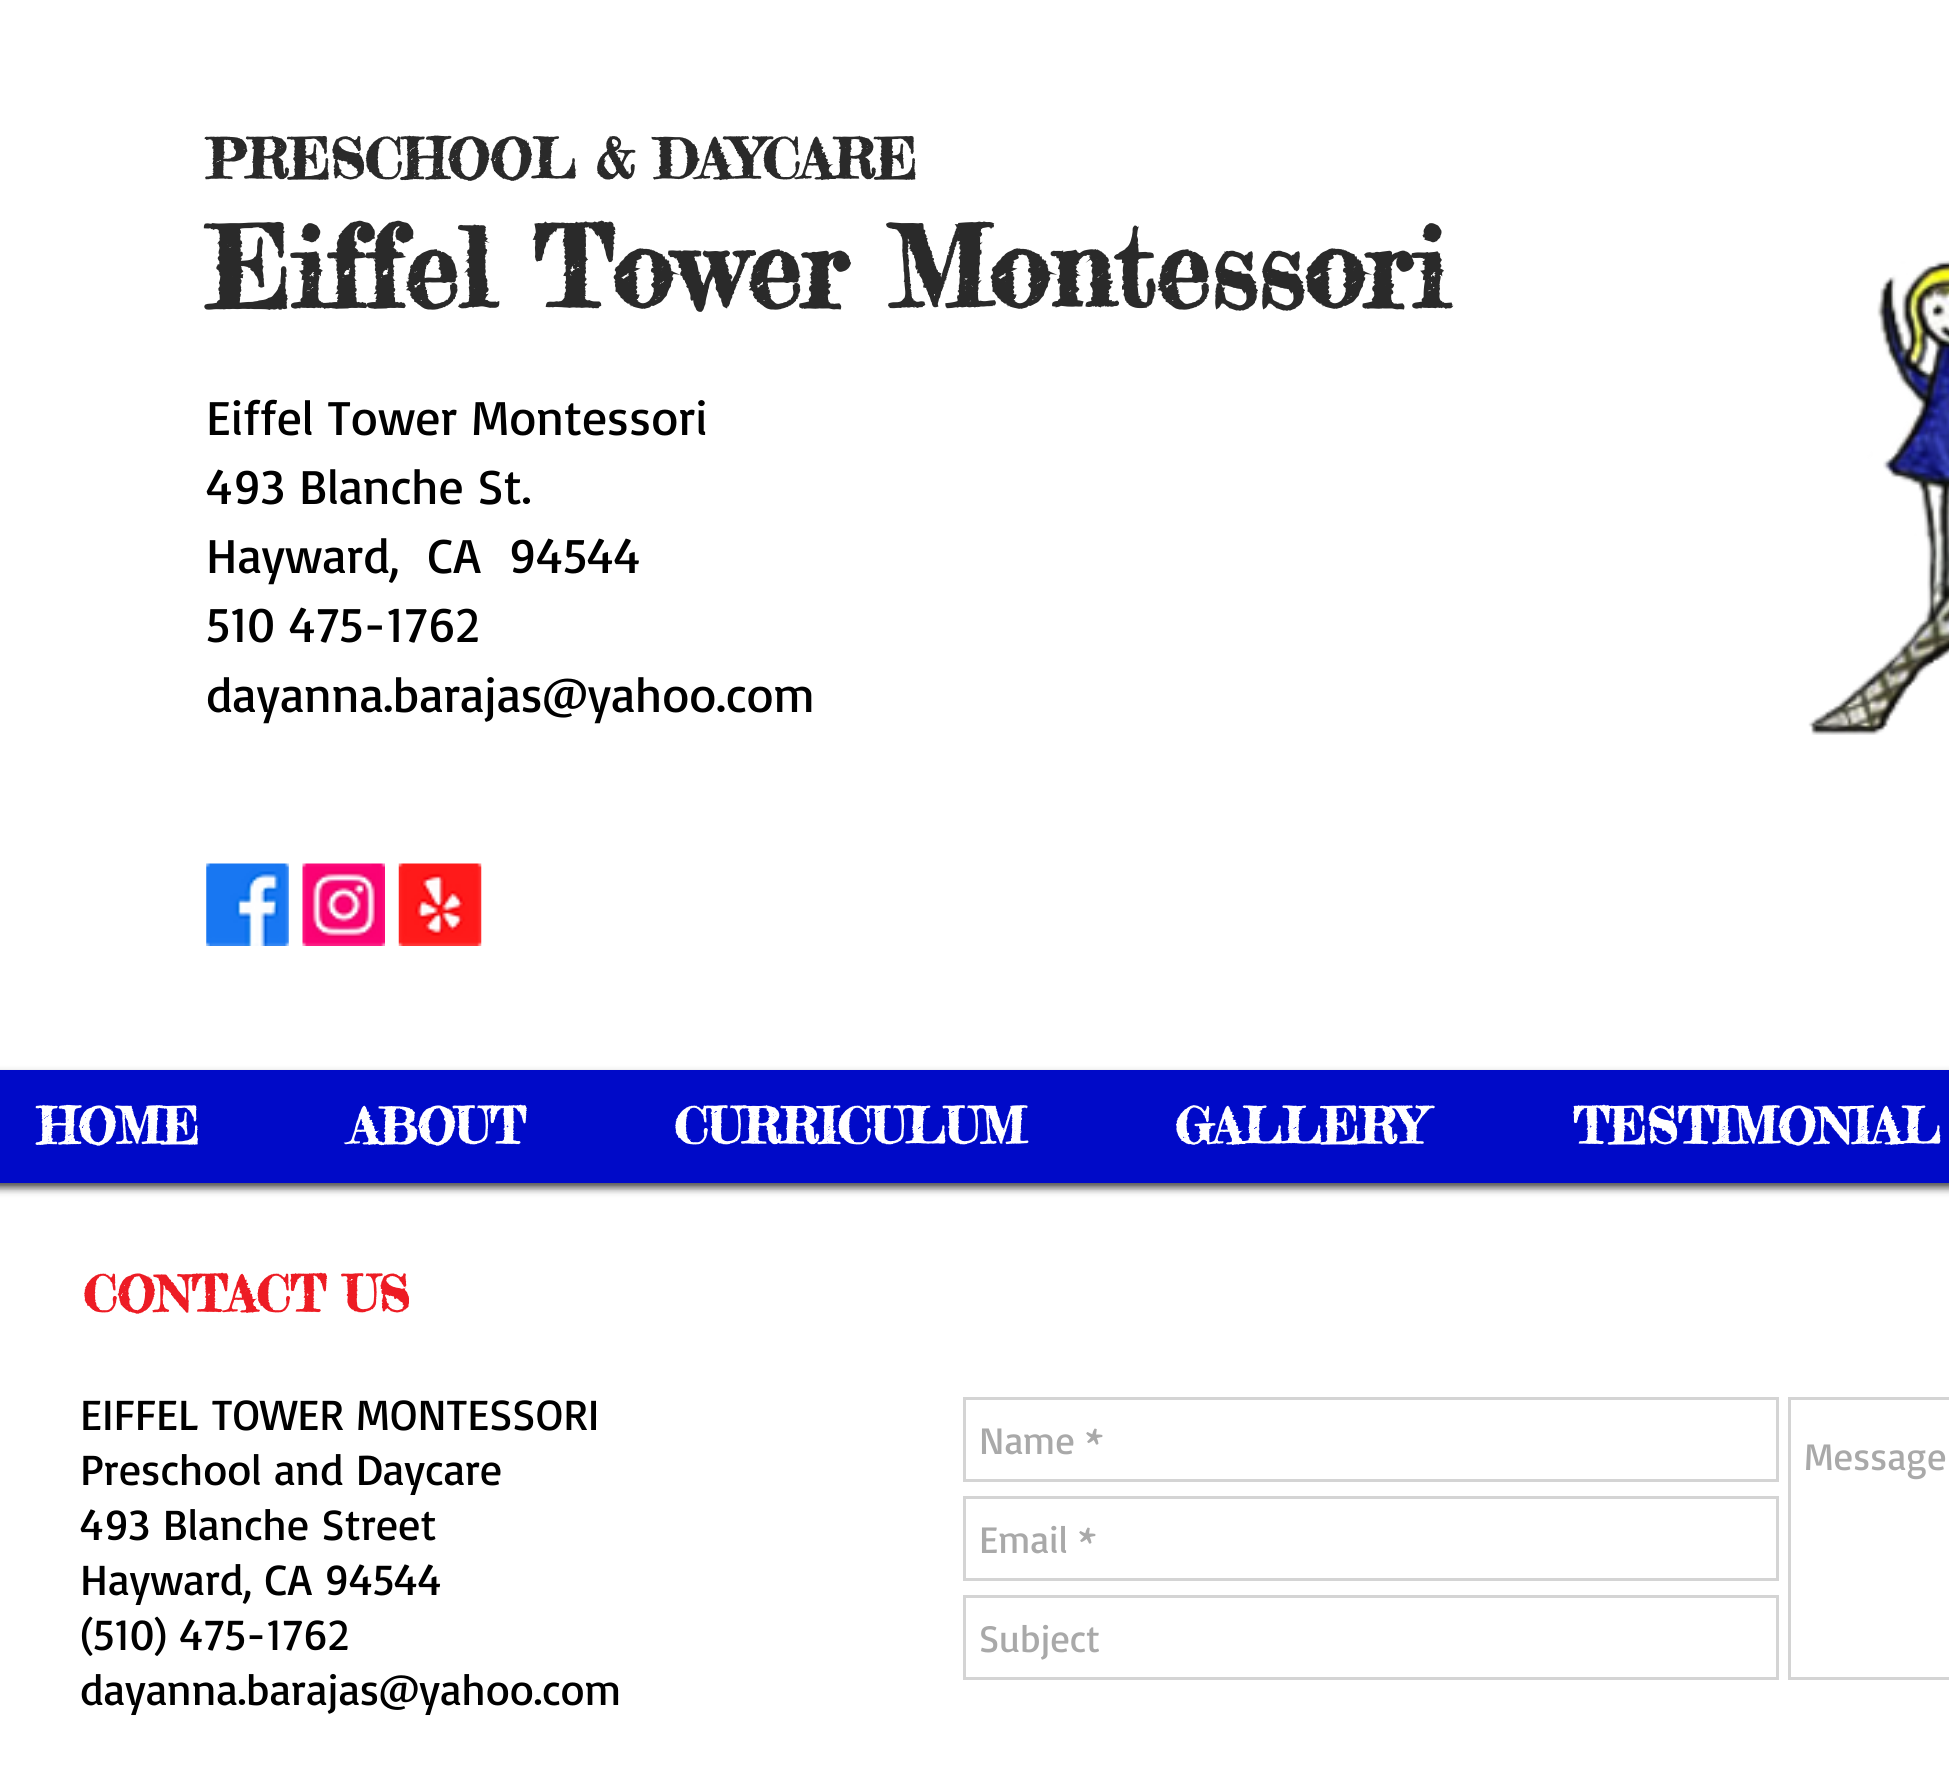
#include <cairo/cairo.h>
#include <math.h>
#include <stddef.h>


static void rounded_rect(cairo_t *cr, double x, double y, double w, double h, double r) {
  cairo_new_sub_path(cr);
  cairo_arc(cr, x + w - r, y + h - r, r, 0, M_PI / 2);
  cairo_arc(cr, x + r, y + h - r, r, M_PI / 2, M_PI);
  cairo_arc(cr, x + r, y + r, r, M_PI, 1.5 * M_PI);
  cairo_arc(cr, x + w - r, y + r, r, 1.5 * M_PI, 2 * M_PI);
  cairo_close_path(cr);
}

static void draw_shadow(cairo_t *cr, double x, double y, double w, double h, double r, double blur, double alpha) {
  cairo_push_group_with_content(cr, CAIRO_CONTENT_ALPHA);
  cairo_set_operator(cr, CAIRO_OPERATOR_SOURCE);
  for (int i = 15; i >= -15 && fmin(w, h) + blur * i / 3 > 0; i -= 2) {
    double e = blur * i / 6;
    cairo_set_source_rgba(cr, 0, 0, 0, alpha * erfc((i - 1) / 8.5) / 2);
    rounded_rect(cr, x - e, y - e, w + 2 * e, h + 2 * e, fmax(0, fmin(r + e + blur * .6, fmin(w, h) / 2 + e)));
    cairo_fill(cr);
  }
  cairo_pattern_t *soft = cairo_pop_group(cr);
  cairo_mask(cr, soft);
  cairo_pattern_destroy(soft);
}

static void draw_image(cairo_t *cr, const char *path, double x, double y, double w, double h) {
  cairo_surface_t *image = cairo_image_surface_create_from_png(path);
  cairo_save(cr);
  cairo_set_source_surface(cr, image, x, y);
  cairo_rectangle(cr, x, y, w, h);
  cairo_fill(cr);
  cairo_restore(cr);
  cairo_surface_destroy(image);
}

static void draw(cairo_t *cr) {
  cairo_set_source_rgb(cr, 1, 1, 1);
  cairo_paint(cr);
  draw_image(cr, "images/1.png", 1808, 260, 141, 475);
  draw_image(cr, "images/2.png", 206, 863, 83, 83);
  draw_image(cr, "images/3.png", 302, 863, 83, 83);
  draw_image(cr, "images/4.png", 398, 863, 84, 83);
  cairo_set_source_rgb(cr, 0, 0, 0);
  draw_shadow(cr, -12, 1075, 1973, 113, 0, 4, 0.7);
  cairo_set_source_rgb(cr, 0, 10 / 255.0, 200 / 255.0);
  cairo_rectangle(cr, 0, 1070, 1949, 113);
  cairo_fill(cr);
  cairo_rectangle(cr, 964.5, 1398.5, 813, 82);
  cairo_set_source_rgb(cr, 212 / 255.0, 212 / 255.0, 212 / 255.0);
  cairo_set_line_width(cr, 3);
  cairo_stroke(cr);
  cairo_rectangle(cr, 1789.5, 1398.5, 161, 280);
  cairo_stroke(cr);
  cairo_rectangle(cr, 964.5, 1497.5, 813, 82);
  cairo_stroke(cr);
  cairo_rectangle(cr, 964.5, 1596.5, 813, 82);
  cairo_stroke(cr);
  cairo_select_font_face(cr, "Fredericka the Great", CAIRO_FONT_SLANT_NORMAL, CAIRO_FONT_WEIGHT_BOLD);
  cairo_set_font_size(cr, 55);
  cairo_set_source_rgb(cr, 42 / 255.0, 42 / 255.0, 42 / 255.0);
  cairo_move_to(cr, 206, 179);
  cairo_show_text(cr, "PRESCHOOL & DAYCARE");
  cairo_set_font_size(cr, 110);
  cairo_move_to(cr, 206, 308);
  cairo_show_text(cr, "Eiffel Tower Montessori");
  cairo_select_font_face(cr, "Basic", CAIRO_FONT_SLANT_NORMAL, CAIRO_FONT_WEIGHT_NORMAL);
  cairo_set_font_size(cr, 49.5);
  cairo_set_source_rgb(cr, 0, 0, 0);
  cairo_move_to(cr, 206, 435);
  cairo_show_text(cr, "Eiffel Tower Montessori");
  cairo_move_to(cr, 206, 504);
  cairo_show_text(cr, "493 Blanche St.");
  cairo_move_to(cr, 206, 573);
  cairo_show_text(cr, "Hayward,  CA  94544");
  cairo_move_to(cr, 206, 642);
  cairo_show_text(cr, "510 475-1762");
  cairo_move_to(cr, 206, 712);
  cairo_show_text(cr, "dayanna.barajas@yahoo.com");
  cairo_select_font_face(cr, "Fredericka the Great", CAIRO_FONT_SLANT_NORMAL, CAIRO_FONT_WEIGHT_BOLD);
  cairo_set_source_rgb(cr, 1, 1, 1);
  cairo_move_to(cr, 37, 1144);
  cairo_show_text(cr, "HOME");
  cairo_move_to(cr, 349, 1144);
  cairo_show_text(cr, "ABOUT");
  cairo_move_to(cr, 674, 1144);
  cairo_show_text(cr, "CURRICULUM");
  cairo_move_to(cr, 1175, 1144);
  cairo_show_text(cr, "GALLERY");
  cairo_move_to(cr, 1573, 1144);
  cairo_show_text(cr, "TESTIMONIAL");
  cairo_set_source_rgb(cr, 237 / 255.0, 28 / 255.0, 36 / 255.0);
  cairo_move_to(cr, 83, 1312);
  cairo_show_text(cr, "CONTACT US");
  cairo_select_font_face(cr, "Basic", CAIRO_FONT_SLANT_NORMAL, CAIRO_FONT_WEIGHT_NORMAL);
  cairo_set_font_size(cr, 44);
  cairo_set_source_rgb(cr, 0, 0, 0);
  cairo_move_to(cr, 80, 1430);
  cairo_show_text(cr, "EIFFEL TOWER MONTESSORI");
  cairo_move_to(cr, 80, 1485);
  cairo_show_text(cr, "Preschool and Daycare");
  cairo_move_to(cr, 80, 1540);
  cairo_show_text(cr, "493 Blanche Street");
  cairo_move_to(cr, 80, 1595);
  cairo_show_text(cr, "Hayward, CA 94544");
  cairo_move_to(cr, 80, 1650);
  cairo_show_text(cr, "(510) 475-1762");
  cairo_move_to(cr, 80, 1705);
  cairo_show_text(cr, "dayanna.barajas@yahoo.com");
  cairo_set_font_size(cr, 38.5);
  cairo_set_source_rgb(cr, 169 / 255.0, 169 / 255.0, 169 / 255.0);
  cairo_move_to(cr, 979, 1454);
  cairo_show_text(cr, "Name *");
  cairo_move_to(cr, 1804, 1470);
  cairo_show_text(cr, "Message");
  cairo_move_to(cr, 979, 1553);
  cairo_show_text(cr, "Email *");
  cairo_move_to(cr, 979, 1652);
  cairo_show_text(cr, "Subject");
}

int main(void) {
  cairo_surface_t *surface = cairo_image_surface_create(CAIRO_FORMAT_RGB24, 1949, 1769);
  cairo_t *cr = cairo_create(surface);
  cairo_font_options_t *options = cairo_font_options_create();
  cairo_font_options_set_hint_metrics(options, CAIRO_HINT_METRICS_OFF);
  cairo_font_options_set_hint_style(options, CAIRO_HINT_STYLE_NONE);
  cairo_set_font_options(cr, options);
  cairo_set_miter_limit(cr, 4);
  draw(cr);
  cairo_surface_write_to_png(surface, "out.png");
  cairo_font_options_destroy(options);
  cairo_destroy(cr);
  cairo_surface_destroy(surface);
  return 0;
}
